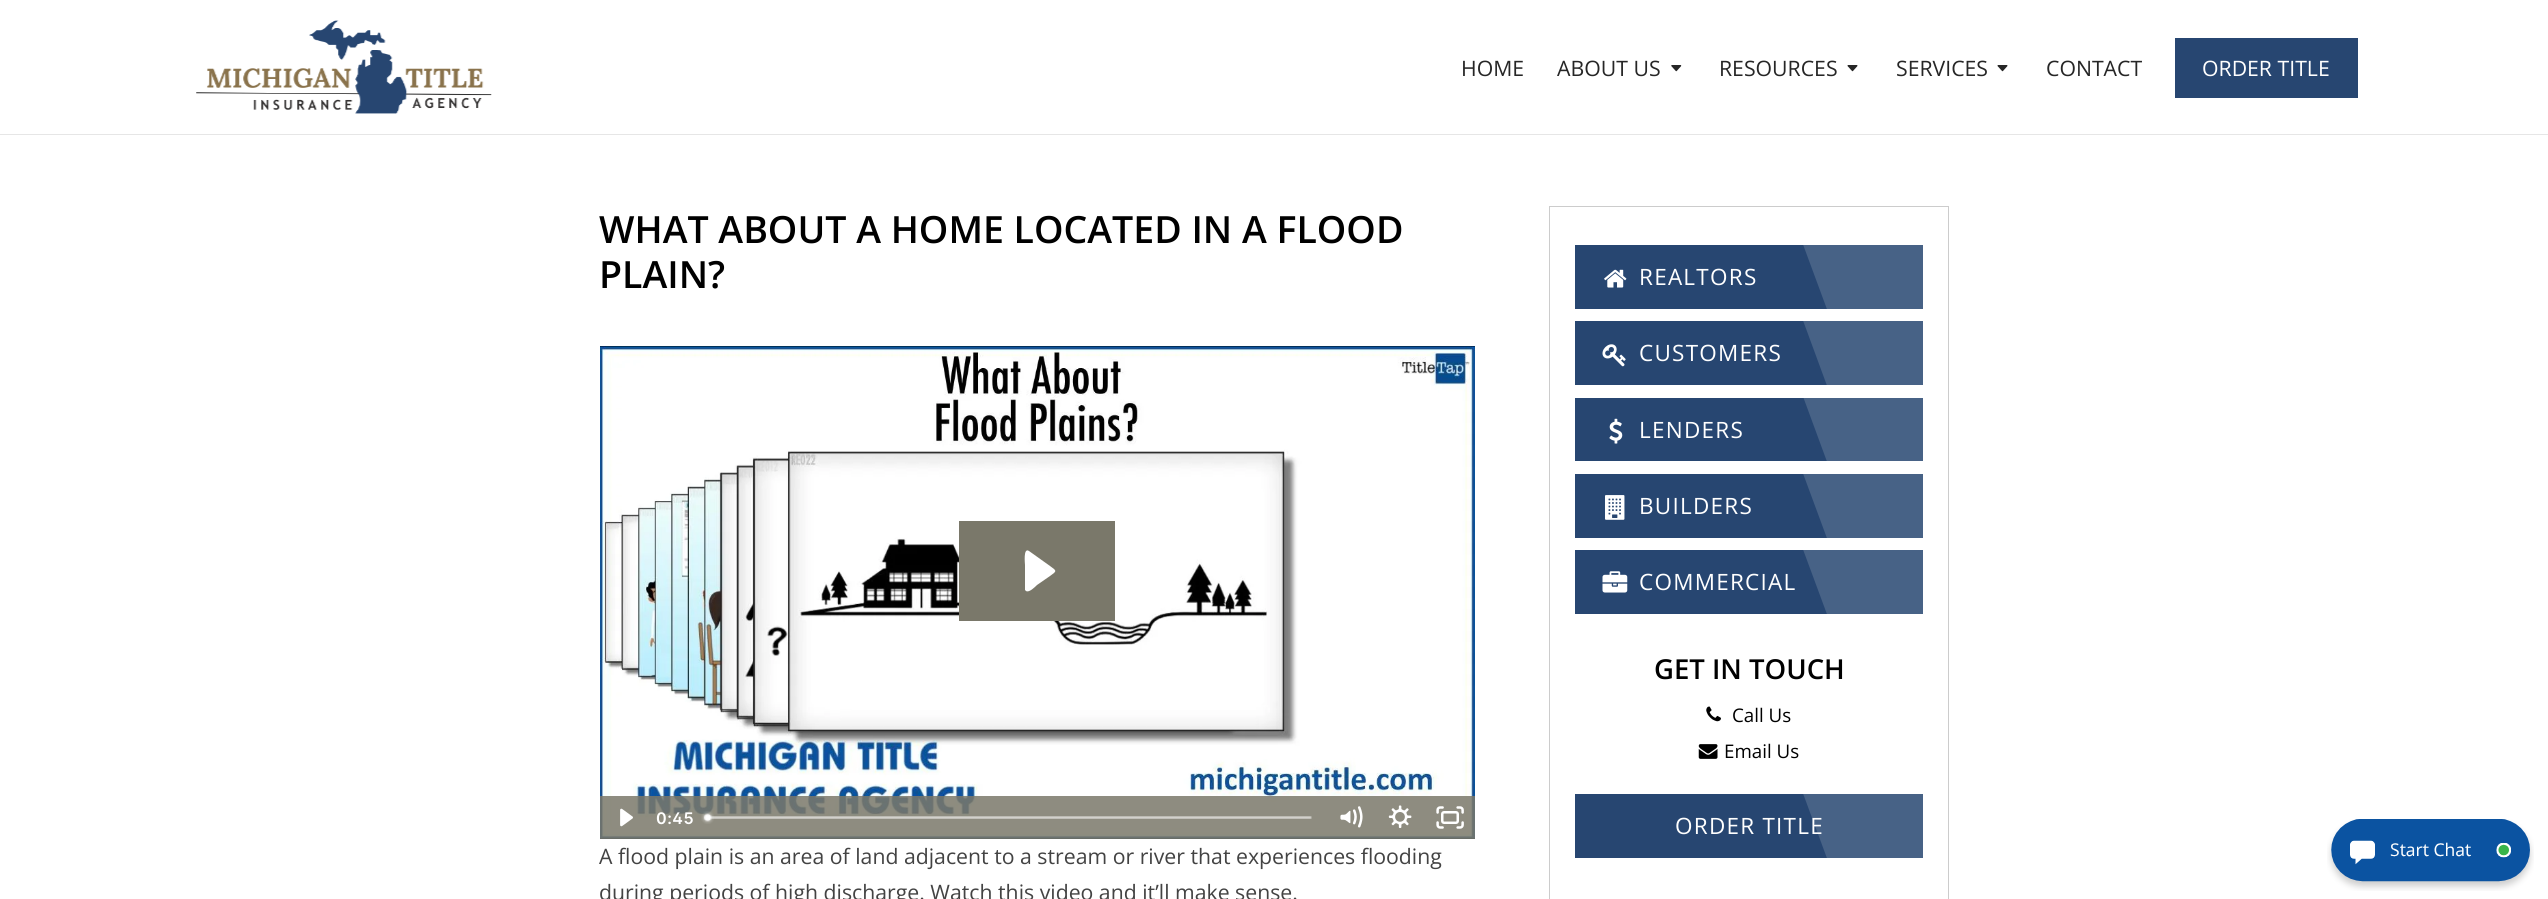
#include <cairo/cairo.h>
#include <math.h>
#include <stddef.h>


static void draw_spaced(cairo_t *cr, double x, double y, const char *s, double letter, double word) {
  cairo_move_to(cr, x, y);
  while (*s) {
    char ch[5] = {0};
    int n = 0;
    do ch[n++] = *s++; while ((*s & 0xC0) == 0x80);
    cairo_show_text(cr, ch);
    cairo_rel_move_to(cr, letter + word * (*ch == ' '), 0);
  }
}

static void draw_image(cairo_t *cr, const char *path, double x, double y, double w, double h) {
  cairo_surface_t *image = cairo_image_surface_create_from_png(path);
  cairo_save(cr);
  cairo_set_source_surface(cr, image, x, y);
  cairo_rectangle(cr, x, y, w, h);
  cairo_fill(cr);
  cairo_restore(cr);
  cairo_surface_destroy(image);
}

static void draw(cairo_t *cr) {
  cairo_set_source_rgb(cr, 1, 1, 1);
  cairo_paint(cr);
  cairo_set_source_rgb(cr, 230 / 255.0, 230 / 255.0, 230 / 255.0);
  cairo_new_path(cr);
  cairo_move_to(cr, 0, 134);
  cairo_line_to(cr, 0, 135);
  cairo_line_to(cr, 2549, 135);
  cairo_line_to(cr, 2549, 1);
  cairo_line_to(cr, 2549, 134);
  cairo_close_path(cr);
  cairo_fill(cr);
  draw_image(cr, "images/1.png", 196, 20, 296, 94);
  draw_image(cr, "images/2.png", 1671, 65, 11, 7);
  draw_image(cr, "images/3.png", 1847, 65, 11, 7);
  draw_image(cr, "images/3.png", 1997, 65, 11, 7);
  cairo_set_source_rgb(cr, 39 / 255.0, 70 / 255.0, 113 / 255.0);
  cairo_rectangle(cr, 2175, 38, 183, 60);
  cairo_fill(cr);
  cairo_set_source_rgb(cr, 0, 0, 0);
  cairo_rectangle(cr, 600, 346, 875, 493);
  cairo_fill(cr);
  draw_image(cr, "images/4.png", 600, 346, 875, 493);
  cairo_set_source_rgb(cr, 122 / 255.0, 120 / 255.0, 106 / 255.0);
  cairo_rectangle(cr, 959, 521, 156, 100);
  cairo_fill(cr);
  cairo_set_source_rgb(cr, 1, 1, 1);
  cairo_set_fill_rule(cr, CAIRO_FILL_RULE_EVEN_ODD);
  cairo_new_path(cr);
  cairo_move_to(cr, 1029, 551);
  cairo_curve_to(cr, 1023, 547, 1025, 564, 1025, 565);
  cairo_line_to(cr, 1025, 590);
  cairo_line_to(cr, 1026, 591);
  cairo_curve_to(cr, 1029, 593, 1035, 587, 1037, 585);
  cairo_line_to(cr, 1050, 576);
  cairo_curve_to(cr, 1057, 571, 1057, 571, 1050, 566);
  cairo_close_path(cr);
  cairo_fill(cr);
  cairo_set_source_rgba(cr, 122 / 255.0, 120 / 255.0, 106 / 255.0, 0.85);
  cairo_rectangle(cr, 600, 796, 875, 43);
  cairo_fill(cr);
  draw_image(cr, "images/5.png", 620, 808, 13, 19);
  draw_image(cr, "images/6.png", 701, 811, 611, 13);
  draw_image(cr, "images/7.png", 1340, 806, 23, 22);
  draw_image(cr, "images/8.png", 1388, 805, 24, 23);
  draw_image(cr, "images/9.png", 1436, 806, 28, 23);
  cairo_rectangle(cr, 1549.5, 206.5, 399, 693);
  cairo_set_source_rgb(cr, 204 / 255.0, 204 / 255.0, 204 / 255.0);
  cairo_set_line_width(cr, 1);
  cairo_stroke(cr);
  cairo_set_source_rgb(cr, 39 / 255.0, 70 / 255.0, 113 / 255.0);
  cairo_rectangle(cr, 1575, 245, 252, 64);
  cairo_fill(cr);
  draw_image(cr, "images/10.png", 1604, 269, 23, 19);
  cairo_save(cr);
  cairo_set_fill_rule(cr, CAIRO_FILL_RULE_WINDING);
  cairo_rectangle(cr, 1575, 245, 348, 64);
  cairo_clip(cr);
  cairo_set_source_rgb(cr, 71 / 255.0, 98 / 255.0, 134 / 255.0);
  cairo_new_path(cr);
  cairo_move_to(cr, 1801, 239);
  cairo_line_to(cr, 1916, 197);
  cairo_line_to(cr, 1979, 371);
  cairo_line_to(cr, 1865, 412);
  cairo_close_path(cr);
  cairo_fill(cr);
  cairo_restore(cr);
  cairo_rectangle(cr, 1575, 321, 252, 64);
  cairo_fill(cr);
  draw_image(cr, "images/11.png", 1602, 344, 24, 23);
  cairo_save(cr);
  cairo_set_fill_rule(cr, CAIRO_FILL_RULE_WINDING);
  cairo_rectangle(cr, 1575, 321, 348, 64);
  cairo_clip(cr);
  cairo_set_source_rgb(cr, 71 / 255.0, 98 / 255.0, 134 / 255.0);
  cairo_new_path(cr);
  cairo_move_to(cr, 1801, 315);
  cairo_line_to(cr, 1916, 273);
  cairo_line_to(cr, 1979, 447);
  cairo_line_to(cr, 1865, 489);
  cairo_close_path(cr);
  cairo_fill(cr);
  cairo_restore(cr);
  cairo_rectangle(cr, 1575, 398, 252, 63);
  cairo_fill(cr);
  draw_image(cr, "images/12.png", 1609, 418, 14, 26);
  cairo_save(cr);
  cairo_set_fill_rule(cr, CAIRO_FILL_RULE_WINDING);
  cairo_rectangle(cr, 1575, 398, 348, 63);
  cairo_clip(cr);
  cairo_set_source_rgb(cr, 71 / 255.0, 98 / 255.0, 134 / 255.0);
  cairo_new_path(cr);
  cairo_move_to(cr, 1801, 391);
  cairo_line_to(cr, 1916, 350);
  cairo_line_to(cr, 1979, 523);
  cairo_line_to(cr, 1865, 565);
  cairo_close_path(cr);
  cairo_fill(cr);
  cairo_restore(cr);
  cairo_rectangle(cr, 1575, 474, 252, 64);
  cairo_fill(cr);
  draw_image(cr, "images/13.png", 1605, 495, 20, 25);
  cairo_save(cr);
  cairo_set_fill_rule(cr, CAIRO_FILL_RULE_WINDING);
  cairo_rectangle(cr, 1575, 474, 348, 64);
  cairo_clip(cr);
  cairo_set_source_rgb(cr, 71 / 255.0, 98 / 255.0, 134 / 255.0);
  cairo_new_path(cr);
  cairo_move_to(cr, 1801, 468);
  cairo_line_to(cr, 1916, 426);
  cairo_line_to(cr, 1979, 600);
  cairo_line_to(cr, 1865, 641);
  cairo_close_path(cr);
  cairo_fill(cr);
  cairo_restore(cr);
  cairo_rectangle(cr, 1575, 550, 252, 64);
  cairo_fill(cr);
  draw_image(cr, "images/14.png", 1602, 571, 26, 22);
  cairo_save(cr);
  cairo_set_fill_rule(cr, CAIRO_FILL_RULE_WINDING);
  cairo_rectangle(cr, 1575, 550, 348, 64);
  cairo_clip(cr);
  cairo_set_source_rgb(cr, 71 / 255.0, 98 / 255.0, 134 / 255.0);
  cairo_new_path(cr);
  cairo_move_to(cr, 1801, 544);
  cairo_line_to(cr, 1916, 502);
  cairo_line_to(cr, 1979, 676);
  cairo_line_to(cr, 1865, 717);
  cairo_close_path(cr);
  cairo_fill(cr);
  cairo_restore(cr);
  draw_image(cr, "images/15.png", 1706, 706, 15, 16);
  draw_image(cr, "images/16.png", 1698, 744, 20, 15);
  cairo_rectangle(cr, 1575, 794, 348, 64);
  cairo_fill(cr);
  draw_image(cr, "images/17.png", 2327, 819, 207, 72);
  cairo_select_font_face(cr, "Open Sans", CAIRO_FONT_SLANT_NORMAL, CAIRO_FONT_WEIGHT_NORMAL);
  cairo_set_font_size(cr, 21.25);
  cairo_set_source_rgb(cr, 38 / 255.0, 38 / 255.0, 38 / 255.0);
  cairo_move_to(cr, 1461, 76);
  cairo_show_text(cr, "HOME");
  cairo_move_to(cr, 1557, 76);
  cairo_show_text(cr, "ABOUT US");
  cairo_move_to(cr, 1719, 76);
  cairo_show_text(cr, "RESOURCES");
  cairo_move_to(cr, 1896, 76);
  cairo_show_text(cr, "SERVICES");
  cairo_move_to(cr, 2046, 76);
  cairo_show_text(cr, "CONTACT");
  cairo_set_source_rgb(cr, 1, 1, 1);
  cairo_move_to(cr, 2202, 76);
  cairo_show_text(cr, "ORDER TITLE");
  cairo_select_font_face(cr, "Open Sans SemiBold", CAIRO_FONT_SLANT_NORMAL, CAIRO_FONT_WEIGHT_NORMAL);
  cairo_set_font_size(cr, 37.5);
  cairo_set_source_rgb(cr, 0, 0, 0);
  cairo_move_to(cr, 599, 243);
  cairo_show_text(cr, "WHAT ABOUT A HOME LOCATED IN A FLOOD");
  cairo_move_to(cr, 599, 288);
  cairo_show_text(cr, "PLAIN?");
  cairo_select_font_face(cr, "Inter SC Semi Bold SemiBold", CAIRO_FONT_SLANT_NORMAL, CAIRO_FONT_WEIGHT_NORMAL);
  cairo_set_font_size(cr, 16);
  cairo_set_source_rgb(cr, 1, 1, 1);
  draw_spaced(cr, 656, 824, "0:45", 0.5, 0);
  cairo_select_font_face(cr, "Open Sans", CAIRO_FONT_SLANT_NORMAL, CAIRO_FONT_WEIGHT_NORMAL);
  cairo_set_font_size(cr, 21.25);
  cairo_set_source_rgb(cr, 67 / 255.0, 67 / 255.0, 67 / 255.0);
  cairo_move_to(cr, 599, 864);
  cairo_show_text(cr, "A flood plain is an area of land adjacent to a stream or river that experiences flooding");
  cairo_move_to(cr, 599, 900);
  cairo_show_text(cr, "during periods of high discharge. Watch this video and it’ll make sense.");
  cairo_set_font_size(cr, 22.5);
  cairo_set_source_rgb(cr, 1, 1, 1);
  draw_spaced(cr, 1639, 285, "REALTORS", 1.25, 0);
  draw_spaced(cr, 1639, 361, "CUSTOMERS", 1.25, 0);
  draw_spaced(cr, 1639, 438, "LENDERS", 1.25, 0);
  draw_spaced(cr, 1639, 514, "BUILDERS", 1.25, 0);
  draw_spaced(cr, 1639, 590, "COMMERCIAL", 1.25, 0);
  cairo_select_font_face(cr, "Open Sans SemiBold", CAIRO_FONT_SLANT_NORMAL, CAIRO_FONT_WEIGHT_NORMAL);
  cairo_set_font_size(cr, 27.5);
  cairo_set_source_rgb(cr, 0, 0, 0);
  cairo_move_to(cr, 1654, 679);
  cairo_show_text(cr, "GET IN TOUCH");
  cairo_select_font_face(cr, "Open Sans", CAIRO_FONT_SLANT_NORMAL, CAIRO_FONT_WEIGHT_NORMAL);
  cairo_set_font_size(cr, 18.75);
  cairo_move_to(cr, 1732, 722);
  cairo_show_text(cr, "Call Us");
  cairo_move_to(cr, 1724, 758);
  cairo_show_text(cr, "Email Us");
  cairo_set_font_size(cr, 22.5);
  cairo_set_source_rgb(cr, 1, 1, 1);
  draw_spaced(cr, 1675, 834, "ORDER TITLE", 1.25, 0);
  cairo_save(cr);
  cairo_set_fill_rule(cr, CAIRO_FILL_RULE_WINDING);
  cairo_rectangle(cr, 1575, 794, 348, 64);
  cairo_clip(cr);
  cairo_set_source_rgba(cr, 1, 1, 1, 0.15);
  cairo_new_path(cr);
  cairo_move_to(cr, 1801, 788);
  cairo_line_to(cr, 1916, 746);
  cairo_line_to(cr, 1979, 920);
  cairo_line_to(cr, 1865, 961);
  cairo_close_path(cr);
  cairo_fill(cr);
  cairo_restore(cr);
}

int main(void) {
  cairo_surface_t *surface = cairo_image_surface_create(CAIRO_FORMAT_RGB24, 2548, 899);
  cairo_t *cr = cairo_create(surface);
  cairo_font_options_t *options = cairo_font_options_create();
  cairo_font_options_set_hint_metrics(options, CAIRO_HINT_METRICS_OFF);
  cairo_font_options_set_hint_style(options, CAIRO_HINT_STYLE_NONE);
  cairo_set_font_options(cr, options);
  cairo_set_miter_limit(cr, 4);
  draw(cr);
  cairo_surface_write_to_png(surface, "out.png");
  cairo_font_options_destroy(options);
  cairo_destroy(cr);
  cairo_surface_destroy(surface);
  return 0;
}
